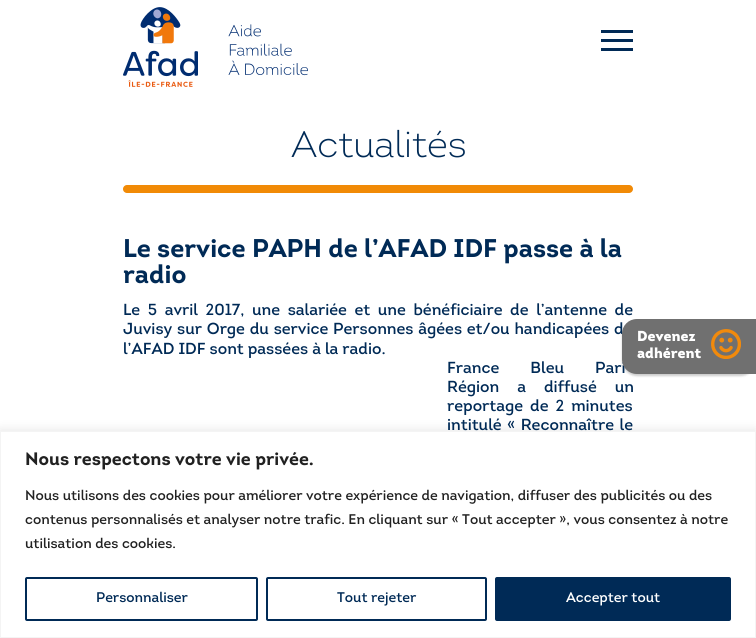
#include <cairo/cairo.h>
#include <math.h>
#include <stddef.h>


static void draw_spaced(cairo_t *cr, double x, double y, const char *s, double letter, double word) {
  cairo_move_to(cr, x, y);
  while (*s) {
    char ch[5] = {0};
    int n = 0;
    do ch[n++] = *s++; while ((*s & 0xC0) == 0x80);
    cairo_show_text(cr, ch);
    cairo_rel_move_to(cr, letter + word * (*ch == ' '), 0);
  }
}

static void rounded_rect(cairo_t *cr, double x, double y, double w, double h, double r) {
  cairo_new_sub_path(cr);
  cairo_arc(cr, x + w - r, y + h - r, r, 0, M_PI / 2);
  cairo_arc(cr, x + r, y + h - r, r, M_PI / 2, M_PI);
  cairo_arc(cr, x + r, y + r, r, M_PI, 1.5 * M_PI);
  cairo_arc(cr, x + w - r, y + r, r, 1.5 * M_PI, 2 * M_PI);
  cairo_close_path(cr);
}

static void draw_shadow(cairo_t *cr, double x, double y, double w, double h, double r, double blur, double alpha) {
  cairo_push_group_with_content(cr, CAIRO_CONTENT_ALPHA);
  cairo_set_operator(cr, CAIRO_OPERATOR_SOURCE);
  for (int i = 15; i >= -15 && fmin(w, h) + blur * i / 3 > 0; i -= 2) {
    double e = blur * i / 6;
    cairo_set_source_rgba(cr, 0, 0, 0, alpha * erfc((i - 1) / 8.5) / 2);
    rounded_rect(cr, x - e, y - e, w + 2 * e, h + 2 * e, fmax(0, fmin(r + e + blur * .6, fmin(w, h) / 2 + e)));
    cairo_fill(cr);
  }
  cairo_pattern_t *soft = cairo_pop_group(cr);
  cairo_mask(cr, soft);
  cairo_pattern_destroy(soft);
}

static void draw_image(cairo_t *cr, const char *path, double x, double y, double w, double h) {
  cairo_surface_t *image = cairo_image_surface_create_from_png(path);
  cairo_save(cr);
  cairo_set_source_surface(cr, image, x, y);
  cairo_rectangle(cr, x, y, w, h);
  cairo_fill(cr);
  cairo_restore(cr);
  cairo_surface_destroy(image);
}

static void draw(cairo_t *cr) {
  cairo_set_source_rgb(cr, 1, 1, 1);
  cairo_paint(cr);
  draw_image(cr, "images/1.png", 123, 7, 75, 80);
  draw_image(cr, "images/2.png", 228, 24, 80, 52);
  cairo_set_source_rgb(cr, 0, 42 / 255.0, 86 / 255.0);
  cairo_rectangle(cr, 601, 30, 32, 3);
  cairo_fill(cr);
  cairo_rectangle(cr, 601, 39, 32, 3);
  cairo_fill(cr);
  cairo_rectangle(cr, 601, 48, 32, 3);
  cairo_fill(cr);
  cairo_set_source_rgb(cr, 241 / 255.0, 138 / 255.0, 6 / 255.0);
  rounded_rect(cr, 123, 185, 510, 8, 4);
  cairo_fill(cr);
  cairo_set_source_rgb(cr, 0, 0, 0);
  draw_shadow(cr, 622, 321, 134, 55, 15, 1, 0.2);
  cairo_set_source_rgb(cr, 172 / 255.0, 171 / 255.0, 171 / 255.0);
  draw_shadow(cr, 0, 430, 756, 207, 0, 5, 0.3);
  cairo_set_source_rgb(cr, 1, 1, 1);
  cairo_rectangle(cr, 0.5, 431.5, 755, 206);
  cairo_fill_preserve(cr);
  cairo_set_source_rgb(cr, 244 / 255.0, 244 / 255.0, 244 / 255.0);
  cairo_set_line_width(cr, 1);
  cairo_stroke(cr);
  rounded_rect(cr, 26, 578, 231, 42, 1);
  cairo_set_source_rgb(cr, 0, 42 / 255.0, 86 / 255.0);
  cairo_set_line_width(cr, 2);
  cairo_stroke(cr);
  rounded_rect(cr, 267, 578, 219, 42, 1);
  cairo_stroke(cr);
  rounded_rect(cr, 496, 578, 234, 42, 1);
  cairo_fill_preserve(cr);
  cairo_stroke(cr);
  cairo_select_font_face(cr, "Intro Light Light", CAIRO_FONT_SLANT_NORMAL, CAIRO_FONT_WEIGHT_NORMAL);
  cairo_set_font_size(cr, 37);
  cairo_move_to(cr, 291, 157);
  cairo_show_text(cr, "Actualités");
  cairo_select_font_face(cr, "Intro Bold", CAIRO_FONT_SLANT_NORMAL, CAIRO_FONT_WEIGHT_BOLD);
  cairo_set_font_size(cr, 25.6);
  cairo_move_to(cr, 123, 257);
  cairo_show_text(cr, "Le service PAPH de l’AFAD IDF passe à la");
  cairo_move_to(cr, 123, 283);
  cairo_show_text(cr, "radio");
  cairo_select_font_face(cr, "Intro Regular", CAIRO_FONT_SLANT_NORMAL, CAIRO_FONT_WEIGHT_NORMAL);
  cairo_set_font_size(cr, 16);
  draw_spaced(cr, 123, 315, "Le 5 avril 2017, une salariée et une bénéficiaire de l’antenne de", 0, 3.6);
  draw_spaced(cr, 123, 334, "Juvisy sur Orge du service Personnes âgées et/ou handicapées d", 0, 0.75);
  cairo_move_to(cr, 123, 354);
  cairo_show_text(cr, "l’AFAD IDF sont passées à la radio.");
  draw_spaced(cr, 447, 373, "France Bleu Pari", 0, 27);
  draw_spaced(cr, 447, 392, "Région a diffusé un", 0, 14);
  draw_spaced(cr, 447, 411, "reportage de 2 minutes", 0, 3);
  draw_spaced(cr, 447, 430, "intitulé « Reconnaître le", 0, 1.5);
  cairo_set_source_rgb(cr, 112 / 255.0, 112 / 255.0, 112 / 255.0);
  cairo_new_path(cr);
  cairo_move_to(cr, 637, 319);
  cairo_line_to(cr, 756, 319);
  cairo_line_to(cr, 756, 374);
  cairo_line_to(cr, 637, 374);
  cairo_curve_to(cr, 628.5, 374, 622, 367.5, 622, 359);
  cairo_line_to(cr, 622, 334);
  cairo_curve_to(cr, 622, 325.5, 628.5, 319, 637, 319);
  cairo_close_path(cr);
  cairo_fill(cr);
  cairo_select_font_face(cr, "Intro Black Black", CAIRO_FONT_SLANT_NORMAL, CAIRO_FONT_WEIGHT_NORMAL);
  cairo_set_font_size(cr, 14.5);
  cairo_set_source_rgb(cr, 1, 1, 1);
  cairo_move_to(cr, 637, 341);
  cairo_show_text(cr, "Devenez");
  draw_image(cr, "images/3.png", 711, 329, 30, 30);
  cairo_move_to(cr, 637, 358);
  cairo_show_text(cr, "adhérent");
  cairo_select_font_face(cr, "Intro Bold", CAIRO_FONT_SLANT_NORMAL, CAIRO_FONT_WEIGHT_BOLD);
  cairo_set_font_size(cr, 18);
  cairo_set_source_rgb(cr, 33 / 255.0, 33 / 255.0, 33 / 255.0);
  cairo_move_to(cr, 25, 465);
  cairo_show_text(cr, "Nous respectons votre vie privée.");
  cairo_select_font_face(cr, "Intro Regular", CAIRO_FONT_SLANT_NORMAL, CAIRO_FONT_WEIGHT_NORMAL);
  cairo_set_font_size(cr, 14);
  cairo_move_to(cr, 25, 500);
  cairo_show_text(cr, "Nous utilisons des cookies pour améliorer votre expérience de navigation, diffuser des publicités ou des");
  cairo_move_to(cr, 25, 524);
  cairo_show_text(cr, "contenus personnalisés et analyser notre trafic. En cliquant sur « Tout accepter », vous consentez à notre");
  cairo_move_to(cr, 25, 548);
  cairo_show_text(cr, "utilisation des cookies.");
  cairo_set_source_rgb(cr, 0, 42 / 255.0, 86 / 255.0);
  cairo_move_to(cr, 96, 602);
  cairo_show_text(cr, "Personnaliser");
  cairo_move_to(cr, 337, 602);
  cairo_show_text(cr, "Tout rejeter");
  cairo_set_source_rgb(cr, 1, 1, 1);
  cairo_move_to(cr, 566, 602);
  cairo_show_text(cr, "Accepter tout");
}

int main(void) {
  cairo_surface_t *surface = cairo_image_surface_create(CAIRO_FORMAT_RGB24, 756, 638);
  cairo_t *cr = cairo_create(surface);
  cairo_font_options_t *options = cairo_font_options_create();
  cairo_font_options_set_hint_metrics(options, CAIRO_HINT_METRICS_OFF);
  cairo_font_options_set_hint_style(options, CAIRO_HINT_STYLE_NONE);
  cairo_set_font_options(cr, options);
  cairo_set_miter_limit(cr, 4);
  draw(cr);
  cairo_surface_write_to_png(surface, "out.png");
  cairo_font_options_destroy(options);
  cairo_destroy(cr);
  cairo_surface_destroy(surface);
  return 0;
}
